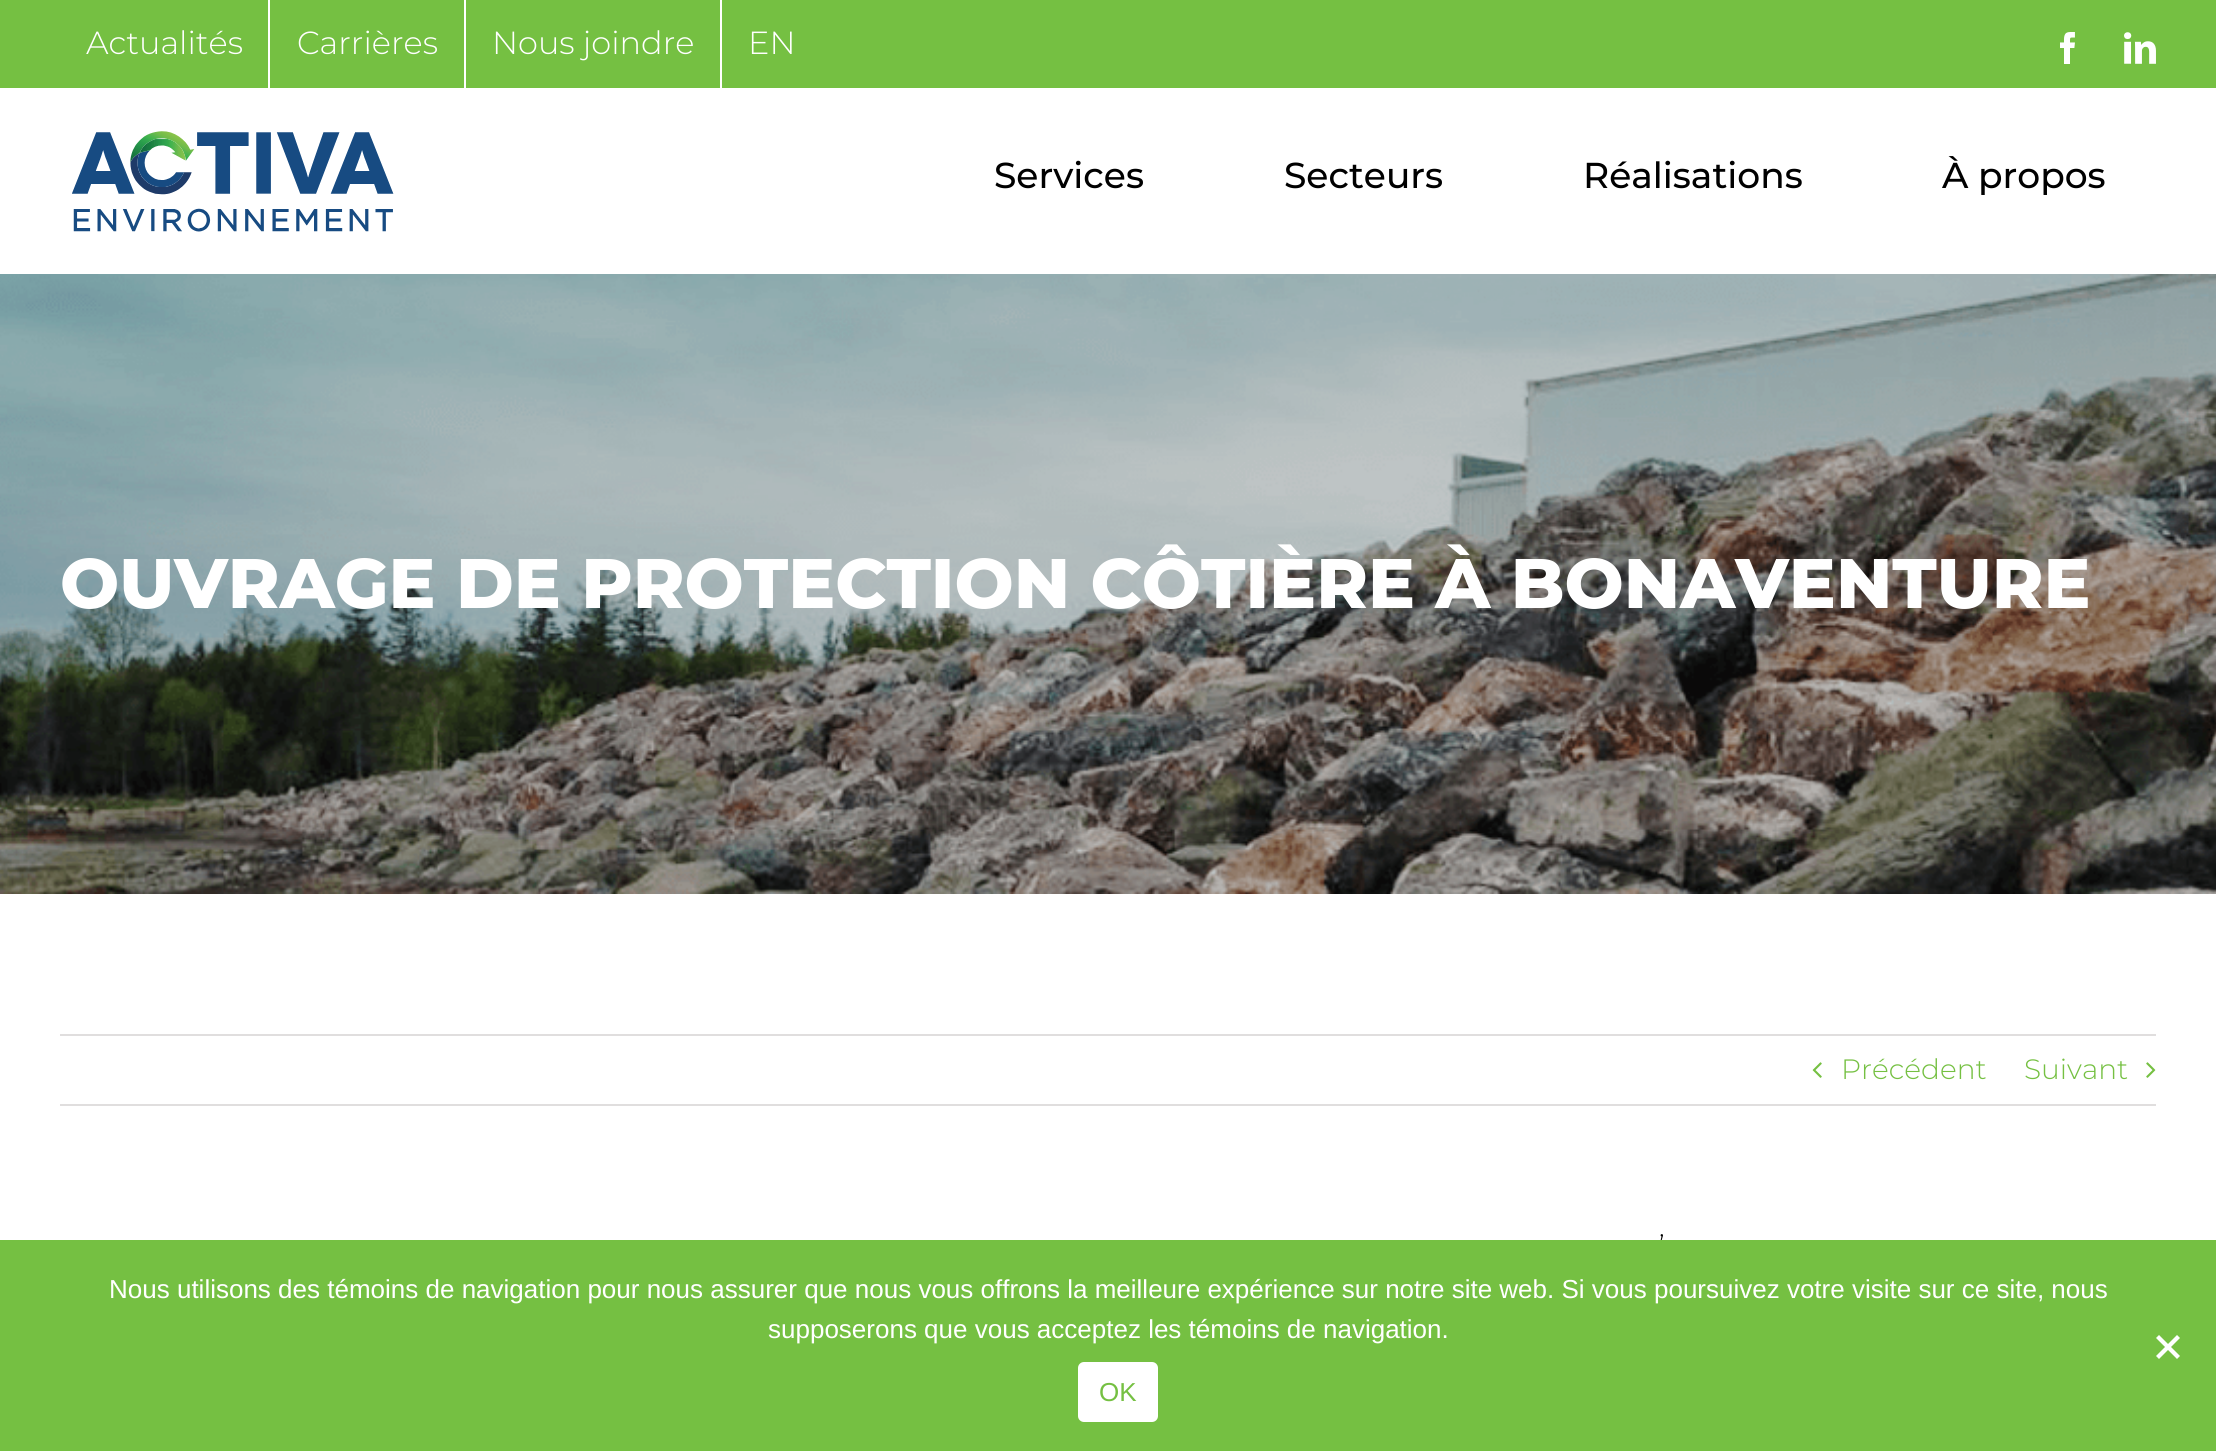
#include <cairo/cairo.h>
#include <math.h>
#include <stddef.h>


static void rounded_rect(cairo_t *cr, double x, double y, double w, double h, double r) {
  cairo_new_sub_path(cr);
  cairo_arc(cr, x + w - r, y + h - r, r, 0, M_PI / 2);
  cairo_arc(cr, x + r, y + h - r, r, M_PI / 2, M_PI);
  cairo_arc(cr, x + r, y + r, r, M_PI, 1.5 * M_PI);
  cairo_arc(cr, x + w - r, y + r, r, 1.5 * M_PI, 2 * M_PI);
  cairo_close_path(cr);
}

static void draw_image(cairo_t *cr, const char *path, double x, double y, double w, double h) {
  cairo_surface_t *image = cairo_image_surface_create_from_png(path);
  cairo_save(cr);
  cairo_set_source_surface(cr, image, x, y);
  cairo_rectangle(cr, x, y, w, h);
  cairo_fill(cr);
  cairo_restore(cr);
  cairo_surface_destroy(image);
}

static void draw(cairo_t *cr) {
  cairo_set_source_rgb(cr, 1, 1, 1);
  cairo_paint(cr);
  cairo_set_source_rgb(cr, 117 / 255.0, 192 / 255.0, 66 / 255.0);
  cairo_rectangle(cr, 0, 0, 2216, 88);
  cairo_fill(cr);
  cairo_set_source_rgb(cr, 1, 1, 1);
  cairo_rectangle(cr, 268, 0, 2, 88);
  cairo_fill(cr);
  cairo_rectangle(cr, 464, 0, 2, 88);
  cairo_fill(cr);
  cairo_rectangle(cr, 720, 0, 2, 88);
  cairo_fill(cr);
  draw_image(cr, "images/1.png", 2060, 32, 15, 32);
  draw_image(cr, "images/2.png", 2124, 32, 32, 32);
  draw_image(cr, "images/3.png", 72, 131, 322, 101);
  draw_image(cr, "images/4.png", 0, 274, 2216, 620);
  cairo_set_source_rgb(cr, 224 / 255.0, 222 / 255.0, 222 / 255.0);
  cairo_rectangle(cr, 60, 1034, 2096, 2);
  cairo_fill(cr);
  cairo_rectangle(cr, 60, 1104, 2096, 2);
  cairo_fill(cr);
  draw_image(cr, "images/5.png", 1812, 1062, 10, 16);
  draw_image(cr, "images/6.png", 2146, 1062, 10, 16);
  cairo_select_font_face(cr, "Montserrat Light", CAIRO_FONT_SLANT_NORMAL, CAIRO_FONT_WEIGHT_NORMAL);
  cairo_set_font_size(cr, 32);
  cairo_set_source_rgb(cr, 1, 1, 1);
  cairo_move_to(cr, 86, 54);
  cairo_show_text(cr, "Actualités");
  cairo_move_to(cr, 297, 54);
  cairo_show_text(cr, "Carrières");
  cairo_move_to(cr, 492, 54);
  cairo_show_text(cr, "Nous joindre");
  cairo_move_to(cr, 748, 54);
  cairo_show_text(cr, "EN");
  cairo_select_font_face(cr, "Montserrat Medium", CAIRO_FONT_SLANT_NORMAL, CAIRO_FONT_WEIGHT_NORMAL);
  cairo_set_font_size(cr, 36);
  cairo_set_source_rgb(cr, 0, 0, 0);
  cairo_move_to(cr, 994, 188);
  cairo_show_text(cr, "Services");
  cairo_move_to(cr, 1284, 188);
  cairo_show_text(cr, "Secteurs");
  cairo_move_to(cr, 1583, 188);
  cairo_show_text(cr, "Réalisations");
  cairo_move_to(cr, 1942, 188);
  cairo_show_text(cr, "À propos");
  cairo_select_font_face(cr, "Montserrat ExtraBold", CAIRO_FONT_SLANT_NORMAL, CAIRO_FONT_WEIGHT_NORMAL);
  cairo_set_font_size(cr, 70);
  cairo_set_source_rgb(cr, 1, 1, 1);
  cairo_move_to(cr, 60, 608);
  cairo_show_text(cr, "OUVRAGE DE PROTECTION CÔTIÈRE À BONAVENTURE");
  cairo_select_font_face(cr, "Montserrat Light", CAIRO_FONT_SLANT_NORMAL, CAIRO_FONT_WEIGHT_NORMAL);
  cairo_set_font_size(cr, 28);
  cairo_set_source_rgb(cr, 117 / 255.0, 192 / 255.0, 66 / 255.0);
  cairo_move_to(cr, 1841, 1079);
  cairo_show_text(cr, "Précédent");
  cairo_move_to(cr, 2024, 1079);
  cairo_show_text(cr, "Suivant");
  cairo_set_source_rgb(cr, 0, 0, 0);
  cairo_move_to(cr, 1659, 1255);
  cairo_show_text(cr, "’");
  cairo_set_source_rgb(cr, 117 / 255.0, 192 / 255.0, 66 / 255.0);
  cairo_rectangle(cr, 0, 1240, 2216, 211);
  cairo_fill(cr);
  cairo_select_font_face(cr, "Liberation Sans", CAIRO_FONT_SLANT_NORMAL, CAIRO_FONT_WEIGHT_NORMAL);
  cairo_set_font_size(cr, 26);
  cairo_set_source_rgb(cr, 1, 1, 1);
  cairo_move_to(cr, 109, 1298);
  cairo_show_text(cr, "Nous utilisons des témoins de navigation pour nous assurer que nous vous offrons la meilleure expérience sur notre site web. Si vous poursuivez votre visite sur ce site, nous");
  cairo_move_to(cr, 768, 1338);
  cairo_show_text(cr, "supposerons que vous acceptez les témoins de navigation.");
  cairo_new_path(cr);
  cairo_move_to(cr, 2177, 1335);
  cairo_line_to(cr, 2180, 1338);
  cairo_line_to(cr, 2159, 1359);
  cairo_line_to(cr, 2156, 1356);
  cairo_close_path(cr);
  cairo_fill(cr);
  cairo_new_path(cr);
  cairo_move_to(cr, 2156, 1338);
  cairo_line_to(cr, 2159, 1335);
  cairo_line_to(cr, 2180, 1356);
  cairo_line_to(cr, 2177, 1359);
  cairo_close_path(cr);
  cairo_fill(cr);
  rounded_rect(cr, 1078, 1362, 80, 60, 6);
  cairo_fill(cr);
  cairo_set_source_rgb(cr, 117 / 255.0, 192 / 255.0, 66 / 255.0);
  cairo_move_to(cr, 1099, 1401);
  cairo_show_text(cr, "OK");
}

int main(void) {
  cairo_surface_t *surface = cairo_image_surface_create(CAIRO_FORMAT_RGB24, 2216, 1451);
  cairo_t *cr = cairo_create(surface);
  cairo_font_options_t *options = cairo_font_options_create();
  cairo_font_options_set_hint_metrics(options, CAIRO_HINT_METRICS_OFF);
  cairo_font_options_set_hint_style(options, CAIRO_HINT_STYLE_NONE);
  cairo_set_font_options(cr, options);
  cairo_set_miter_limit(cr, 4);
  draw(cr);
  cairo_surface_write_to_png(surface, "out.png");
  cairo_font_options_destroy(options);
  cairo_destroy(cr);
  cairo_surface_destroy(surface);
  return 0;
}
